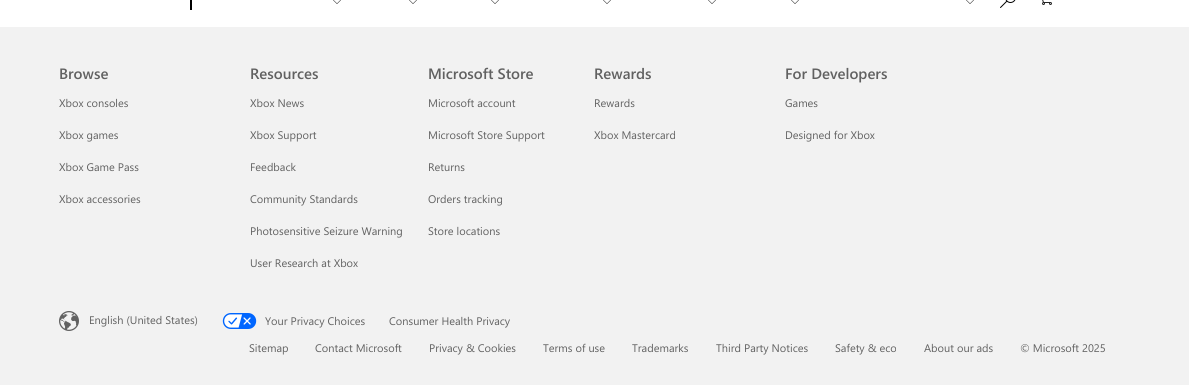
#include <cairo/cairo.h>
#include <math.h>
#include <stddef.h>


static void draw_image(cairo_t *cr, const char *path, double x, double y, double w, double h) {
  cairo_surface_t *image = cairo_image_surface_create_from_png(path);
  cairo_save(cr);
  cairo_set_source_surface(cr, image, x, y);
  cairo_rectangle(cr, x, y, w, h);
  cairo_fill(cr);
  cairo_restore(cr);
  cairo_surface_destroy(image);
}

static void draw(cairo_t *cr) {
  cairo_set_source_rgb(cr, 1, 1, 1);
  cairo_paint(cr);
  cairo_set_source_rgb(cr, 0, 0, 0);
  cairo_rectangle(cr, 190, 0, 2, 10);
  cairo_fill(cr);
  draw_image(cr, "images/1.png", 333, 0, 8, 4);
  draw_image(cr, "images/1.png", 409, 0, 8, 4);
  draw_image(cr, "images/1.png", 491, 0, 8, 4);
  draw_image(cr, "images/1.png", 603, 0, 8, 4);
  draw_image(cr, "images/1.png", 708, 0, 8, 4);
  draw_image(cr, "images/1.png", 791, 0, 8, 4);
  draw_image(cr, "images/1.png", 966, 0, 8, 4);
  draw_image(cr, "images/2.png", 1000, 0, 16, 8);
  draw_image(cr, "images/3.png", 1042, 0, 10, 5);
  cairo_set_source_rgb(cr, 242 / 255.0, 242 / 255.0, 242 / 255.0);
  cairo_rectangle(cr, 0, 27, 1189, 358);
  cairo_fill(cr);
  draw_image(cr, "images/4.png", 59, 311, 20, 20);
  draw_image(cr, "images/5.png", 222, 313, 35, 16);
  cairo_select_font_face(cr, "Segoe UI SemiBold", CAIRO_FONT_SLANT_NORMAL, CAIRO_FONT_WEIGHT_NORMAL);
  cairo_set_font_size(cr, 15);
  cairo_set_source_rgb(cr, 97 / 255.0, 97 / 255.0, 97 / 255.0);
  cairo_move_to(cr, 59, 79);
  cairo_show_text(cr, "Browse");
  cairo_select_font_face(cr, "Segoe UI", CAIRO_FONT_SLANT_NORMAL, CAIRO_FONT_WEIGHT_NORMAL);
  cairo_set_font_size(cr, 11);
  cairo_move_to(cr, 59, 107);
  cairo_show_text(cr, "Xbox consoles");
  cairo_move_to(cr, 59, 139);
  cairo_show_text(cr, "Xbox games");
  cairo_move_to(cr, 59, 171);
  cairo_show_text(cr, "Xbox Game Pass");
  cairo_move_to(cr, 59, 203);
  cairo_show_text(cr, "Xbox accessories");
  cairo_select_font_face(cr, "Segoe UI SemiBold", CAIRO_FONT_SLANT_NORMAL, CAIRO_FONT_WEIGHT_NORMAL);
  cairo_set_font_size(cr, 15);
  cairo_move_to(cr, 250, 79);
  cairo_show_text(cr, "Resources");
  cairo_select_font_face(cr, "Segoe UI", CAIRO_FONT_SLANT_NORMAL, CAIRO_FONT_WEIGHT_NORMAL);
  cairo_set_font_size(cr, 11);
  cairo_move_to(cr, 250, 107);
  cairo_show_text(cr, "Xbox News");
  cairo_move_to(cr, 250, 139);
  cairo_show_text(cr, "Xbox Support");
  cairo_move_to(cr, 250, 171);
  cairo_show_text(cr, "Feedback");
  cairo_move_to(cr, 250, 203);
  cairo_show_text(cr, "Community Standards");
  cairo_move_to(cr, 250, 235);
  cairo_show_text(cr, "Photosensitive Seizure Warning");
  cairo_move_to(cr, 250, 267);
  cairo_show_text(cr, "User Research at Xbox");
  cairo_select_font_face(cr, "Segoe UI SemiBold", CAIRO_FONT_SLANT_NORMAL, CAIRO_FONT_WEIGHT_NORMAL);
  cairo_set_font_size(cr, 15);
  cairo_move_to(cr, 428, 79);
  cairo_show_text(cr, "Microsoft Store");
  cairo_select_font_face(cr, "Segoe UI", CAIRO_FONT_SLANT_NORMAL, CAIRO_FONT_WEIGHT_NORMAL);
  cairo_set_font_size(cr, 11);
  cairo_move_to(cr, 428, 107);
  cairo_show_text(cr, "Microsoft account");
  cairo_move_to(cr, 428, 139);
  cairo_show_text(cr, "Microsoft Store Support");
  cairo_move_to(cr, 428, 171);
  cairo_show_text(cr, "Returns");
  cairo_move_to(cr, 428, 203);
  cairo_show_text(cr, "Orders tracking");
  cairo_move_to(cr, 428, 235);
  cairo_show_text(cr, "Store locations");
  cairo_select_font_face(cr, "Segoe UI SemiBold", CAIRO_FONT_SLANT_NORMAL, CAIRO_FONT_WEIGHT_NORMAL);
  cairo_set_font_size(cr, 15);
  cairo_move_to(cr, 594, 79);
  cairo_show_text(cr, "Rewards");
  cairo_select_font_face(cr, "Segoe UI", CAIRO_FONT_SLANT_NORMAL, CAIRO_FONT_WEIGHT_NORMAL);
  cairo_set_font_size(cr, 11);
  cairo_move_to(cr, 594, 107);
  cairo_show_text(cr, "Rewards");
  cairo_move_to(cr, 594, 139);
  cairo_show_text(cr, "Xbox Mastercard");
  cairo_select_font_face(cr, "Segoe UI SemiBold", CAIRO_FONT_SLANT_NORMAL, CAIRO_FONT_WEIGHT_NORMAL);
  cairo_set_font_size(cr, 15);
  cairo_move_to(cr, 785, 79);
  cairo_show_text(cr, "For Developers");
  cairo_select_font_face(cr, "Segoe UI", CAIRO_FONT_SLANT_NORMAL, CAIRO_FONT_WEIGHT_NORMAL);
  cairo_set_font_size(cr, 11);
  cairo_move_to(cr, 785, 107);
  cairo_show_text(cr, "Games");
  cairo_move_to(cr, 785, 139);
  cairo_show_text(cr, "Designed for Xbox");
  cairo_move_to(cr, 89, 324);
  cairo_show_text(cr, "English (United States)");
  cairo_move_to(cr, 265, 325);
  cairo_show_text(cr, "Your Privacy Choices");
  cairo_move_to(cr, 389, 325);
  cairo_show_text(cr, "Consumer Health Privacy");
  cairo_move_to(cr, 249, 352);
  cairo_show_text(cr, "Sitemap");
  cairo_move_to(cr, 315, 352);
  cairo_show_text(cr, "Contact Microsoft");
  cairo_move_to(cr, 429, 352);
  cairo_show_text(cr, "Privacy & Cookies");
  cairo_move_to(cr, 543, 352);
  cairo_show_text(cr, "Terms of use");
  cairo_move_to(cr, 632, 352);
  cairo_show_text(cr, "Trademarks");
  cairo_move_to(cr, 716, 352);
  cairo_show_text(cr, "Third Party Notices");
  cairo_move_to(cr, 835, 352);
  cairo_show_text(cr, "Safety & eco");
  cairo_move_to(cr, 924, 352);
  cairo_show_text(cr, "About our ads");
  cairo_move_to(cr, 1020, 352);
  cairo_show_text(cr, "© Microsoft 2025");
}

int main(void) {
  cairo_surface_t *surface = cairo_image_surface_create(CAIRO_FORMAT_RGB24, 1189, 385);
  cairo_t *cr = cairo_create(surface);
  cairo_font_options_t *options = cairo_font_options_create();
  cairo_font_options_set_hint_metrics(options, CAIRO_HINT_METRICS_OFF);
  cairo_font_options_set_hint_style(options, CAIRO_HINT_STYLE_NONE);
  cairo_set_font_options(cr, options);
  cairo_set_miter_limit(cr, 4);
  draw(cr);
  cairo_surface_write_to_png(surface, "out.png");
  cairo_font_options_destroy(options);
  cairo_destroy(cr);
  cairo_surface_destroy(surface);
  return 0;
}
